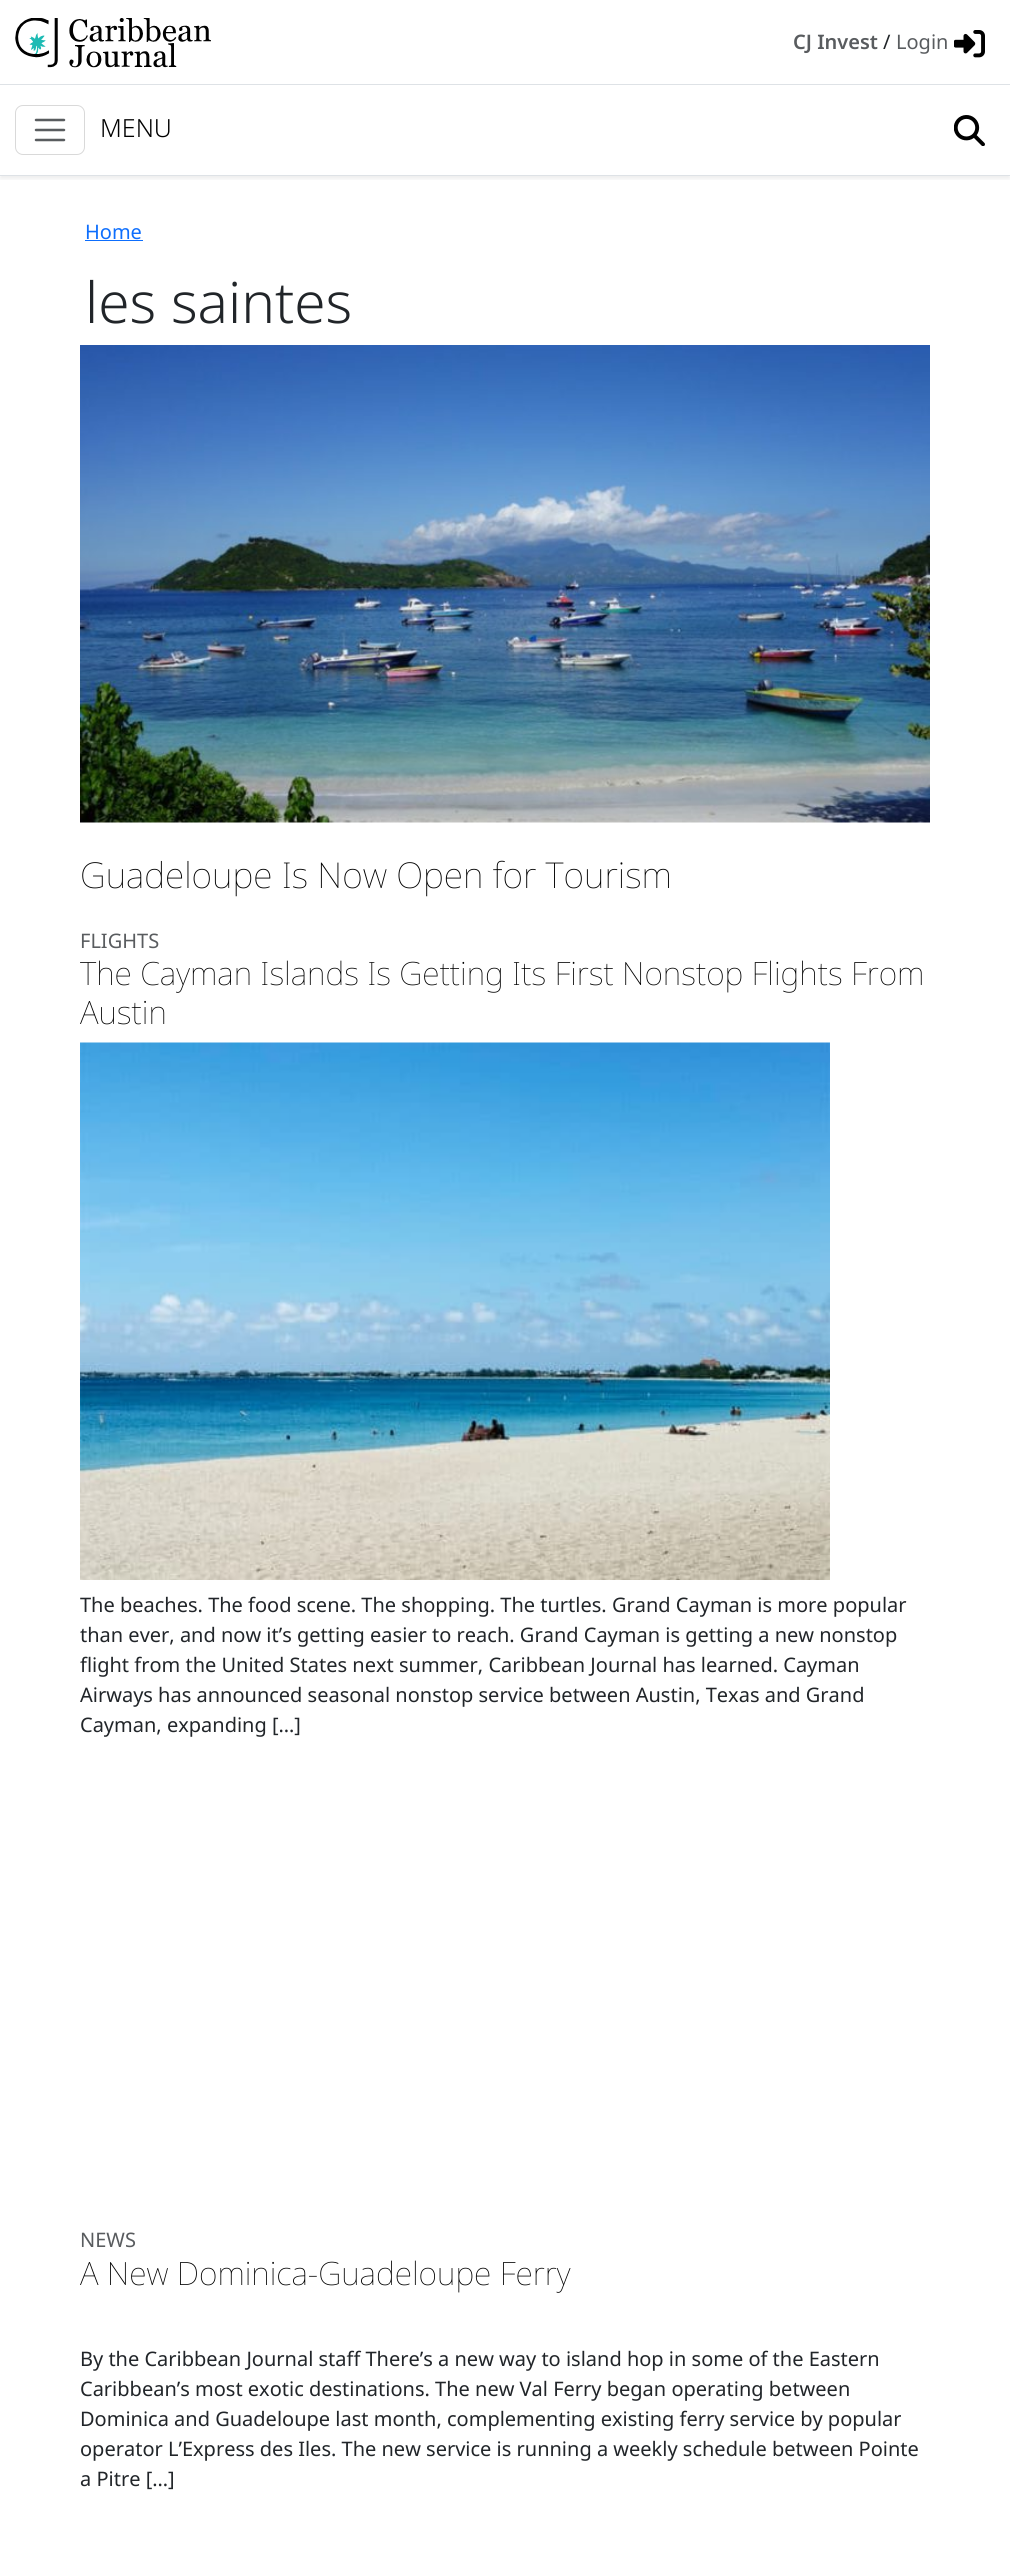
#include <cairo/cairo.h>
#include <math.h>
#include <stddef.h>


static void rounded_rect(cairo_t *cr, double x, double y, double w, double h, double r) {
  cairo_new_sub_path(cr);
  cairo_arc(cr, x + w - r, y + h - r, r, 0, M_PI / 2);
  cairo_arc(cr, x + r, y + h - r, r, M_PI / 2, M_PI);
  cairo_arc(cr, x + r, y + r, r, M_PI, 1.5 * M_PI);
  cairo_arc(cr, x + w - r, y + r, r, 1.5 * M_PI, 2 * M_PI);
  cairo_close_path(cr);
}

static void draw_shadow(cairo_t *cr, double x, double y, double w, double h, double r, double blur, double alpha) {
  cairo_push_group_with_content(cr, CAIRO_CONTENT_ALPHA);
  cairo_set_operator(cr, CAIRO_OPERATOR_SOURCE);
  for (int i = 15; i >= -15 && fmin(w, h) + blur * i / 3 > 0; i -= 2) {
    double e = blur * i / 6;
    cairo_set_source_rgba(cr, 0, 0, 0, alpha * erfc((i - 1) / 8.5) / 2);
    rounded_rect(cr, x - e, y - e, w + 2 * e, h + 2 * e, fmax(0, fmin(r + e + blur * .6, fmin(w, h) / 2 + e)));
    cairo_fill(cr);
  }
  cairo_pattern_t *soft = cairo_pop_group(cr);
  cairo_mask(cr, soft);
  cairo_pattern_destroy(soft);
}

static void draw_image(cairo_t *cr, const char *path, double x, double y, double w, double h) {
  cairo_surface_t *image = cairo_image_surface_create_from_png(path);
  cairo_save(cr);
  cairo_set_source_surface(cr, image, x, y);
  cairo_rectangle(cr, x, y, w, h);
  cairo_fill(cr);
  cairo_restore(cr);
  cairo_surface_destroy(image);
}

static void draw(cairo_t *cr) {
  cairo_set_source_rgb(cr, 1, 1, 1);
  cairo_paint(cr);
  cairo_set_source_rgb(cr, 222 / 255.0, 226 / 255.0, 230 / 255.0);
  cairo_rectangle(cr, 0, 84, 1010, 1);
  cairo_fill(cr);
  draw_image(cr, "images/1.png", 15, 18, 196, 50);
  draw_image(cr, "images/2.png", 954, 30, 31, 28);
  cairo_save(cr);
  cairo_rectangle(cr, 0, 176, 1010, 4);
  cairo_clip(cr);
  cairo_set_source_rgb(cr, 0, 0, 0);
  draw_shadow(cr, 0, 98, 1010, 81, 0, 2.5, 0.07);
  cairo_restore(cr);
  cairo_rectangle(cr, 0, 175, 1010, 1);
  cairo_fill(cr);
  rounded_rect(cr, 15.5, 105.5, 69, 49, 7.5);
  cairo_set_source_rgb(cr, 217 / 255.0, 217 / 255.0, 217 / 255.0);
  cairo_set_line_width(cr, 1);
  cairo_stroke(cr);
  cairo_new_path(cr);
  cairo_move_to(cr, 36, 120);
  cairo_line_to(cr, 64, 120);
  cairo_move_to(cr, 36, 130);
  cairo_line_to(cr, 64, 130);
  cairo_move_to(cr, 36, 140);
  cairo_line_to(cr, 64, 140);
  cairo_set_source_rgb(cr, 89 / 255.0, 92 / 255.0, 95 / 255.0);
  cairo_set_line_width(cr, 2.5);
  cairo_set_line_cap(cr, CAIRO_LINE_CAP_ROUND);
  cairo_stroke(cr);
  draw_image(cr, "images/3.png", 954, 115, 31, 31);
  cairo_set_source_rgb(cr, 13 / 255.0, 110 / 255.0, 253 / 255.0);
  cairo_rectangle(cr, 85, 240, 58, 1);
  cairo_fill(cr);
  draw_image(cr, "images/4.png", 80, 345, 850, 478);
  draw_image(cr, "images/5.png", 80, 1042, 750, 538);
  cairo_select_font_face(cr, "Noto Sans SemiBold", CAIRO_FONT_SLANT_NORMAL, CAIRO_FONT_WEIGHT_NORMAL);
  cairo_set_font_size(cr, 20);
  cairo_set_source_rgb(cr, 89 / 255.0, 92 / 255.0, 95 / 255.0);
  cairo_move_to(cr, 793, 49);
  cairo_show_text(cr, "CJ Invest");
  cairo_select_font_face(cr, "Noto Sans", CAIRO_FONT_SLANT_NORMAL, CAIRO_FONT_WEIGHT_NORMAL);
  cairo_set_source_rgb(cr, 33 / 255.0, 37 / 255.0, 41 / 255.0);
  cairo_move_to(cr, 883, 49);
  cairo_show_text(cr, "/");
  cairo_set_source_rgb(cr, 89 / 255.0, 92 / 255.0, 95 / 255.0);
  cairo_move_to(cr, 896, 49);
  cairo_show_text(cr, "Login");
  cairo_select_font_face(cr, "Noto Sans Light", CAIRO_FONT_SLANT_NORMAL, CAIRO_FONT_WEIGHT_NORMAL);
  cairo_set_font_size(cr, 25);
  cairo_set_source_rgb(cr, 0, 0, 0);
  cairo_move_to(cr, 100, 137);
  cairo_show_text(cr, "MENU");
  cairo_select_font_face(cr, "Noto Sans", CAIRO_FONT_SLANT_NORMAL, CAIRO_FONT_WEIGHT_NORMAL);
  cairo_set_font_size(cr, 20);
  cairo_set_source_rgb(cr, 13 / 255.0, 110 / 255.0, 253 / 255.0);
  cairo_move_to(cr, 85, 239);
  cairo_show_text(cr, "Home");
  cairo_select_font_face(cr, "Noto Sans Light", CAIRO_FONT_SLANT_NORMAL, CAIRO_FONT_WEIGHT_NORMAL);
  cairo_set_font_size(cr, 56.75);
  cairo_set_source_rgb(cr, 33 / 255.0, 37 / 255.0, 41 / 255.0);
  cairo_move_to(cr, 85, 323);
  cairo_show_text(cr, "les saintes");
  cairo_select_font_face(cr, "Noto Sans Thin", CAIRO_FONT_SLANT_NORMAL, CAIRO_FONT_WEIGHT_NORMAL);
  cairo_set_font_size(cr, 35.6);
  cairo_set_source_rgb(cr, 0, 0, 0);
  cairo_move_to(cr, 80, 888);
  cairo_show_text(cr, "Guadeloupe Is Now Open for Tourism");
  cairo_select_font_face(cr, "Noto Sans", CAIRO_FONT_SLANT_NORMAL, CAIRO_FONT_WEIGHT_NORMAL);
  cairo_set_font_size(cr, 20);
  cairo_set_source_rgb(cr, 89 / 255.0, 92 / 255.0, 95 / 255.0);
  cairo_move_to(cr, 80, 948);
  cairo_show_text(cr, "FLIGHTS");
  cairo_select_font_face(cr, "Noto Sans Thin", CAIRO_FONT_SLANT_NORMAL, CAIRO_FONT_WEIGHT_NORMAL);
  cairo_set_font_size(cr, 32.05);
  cairo_set_source_rgb(cr, 0, 0, 0);
  cairo_move_to(cr, 80, 985);
  cairo_show_text(cr, "The Cayman Islands Is Getting Its First Nonstop Flights From");
  cairo_move_to(cr, 80, 1024);
  cairo_show_text(cr, "Austin");
  cairo_select_font_face(cr, "Noto Sans", CAIRO_FONT_SLANT_NORMAL, CAIRO_FONT_WEIGHT_NORMAL);
  cairo_set_font_size(cr, 20);
  cairo_set_source_rgb(cr, 33 / 255.0, 37 / 255.0, 41 / 255.0);
  cairo_move_to(cr, 80, 1612);
  cairo_show_text(cr, "The beaches. The food scene. The shopping. The turtles. Grand Cayman is more popular");
  cairo_move_to(cr, 80, 1642);
  cairo_show_text(cr, "than ever, and now it’s getting easier to reach. Grand Cayman is getting a new nonstop");
  cairo_move_to(cr, 80, 1672);
  cairo_show_text(cr, "flight from the United States next summer, Caribbean Journal has learned. Cayman");
  cairo_move_to(cr, 80, 1702);
  cairo_show_text(cr, "Airways has announced seasonal nonstop service between Austin, Texas and Grand");
  cairo_move_to(cr, 80, 1732);
  cairo_show_text(cr, "Cayman, expanding […]");
  cairo_set_source_rgb(cr, 89 / 255.0, 92 / 255.0, 95 / 255.0);
  cairo_move_to(cr, 80, 2247);
  cairo_show_text(cr, "NEWS");
  cairo_select_font_face(cr, "Noto Sans Thin", CAIRO_FONT_SLANT_NORMAL, CAIRO_FONT_WEIGHT_NORMAL);
  cairo_set_font_size(cr, 32.05);
  cairo_set_source_rgb(cr, 0, 0, 0);
  cairo_move_to(cr, 80, 2285);
  cairo_show_text(cr, "A New Dominica-Guadeloupe Ferry");
  cairo_select_font_face(cr, "Noto Sans", CAIRO_FONT_SLANT_NORMAL, CAIRO_FONT_WEIGHT_NORMAL);
  cairo_set_font_size(cr, 20);
  cairo_set_source_rgb(cr, 33 / 255.0, 37 / 255.0, 41 / 255.0);
  cairo_move_to(cr, 80, 2366);
  cairo_show_text(cr, "By the Caribbean Journal staff There’s a new way to island hop in some of the Eastern");
  cairo_move_to(cr, 80, 2396);
  cairo_show_text(cr, "Caribbean’s most exotic destinations. The new Val Ferry began operating between");
  cairo_move_to(cr, 80, 2426);
  cairo_show_text(cr, "Dominica and Guadeloupe last month, complementing existing ferry service by popular");
  cairo_move_to(cr, 80, 2456);
  cairo_show_text(cr, "operator L’Express des Iles. The new service is running a weekly schedule between Pointe");
  cairo_move_to(cr, 80, 2486);
  cairo_show_text(cr, "a Pitre […]");
}

int main(void) {
  cairo_surface_t *surface = cairo_image_surface_create(CAIRO_FORMAT_RGB24, 1010, 2572);
  cairo_t *cr = cairo_create(surface);
  cairo_font_options_t *options = cairo_font_options_create();
  cairo_font_options_set_hint_metrics(options, CAIRO_HINT_METRICS_OFF);
  cairo_font_options_set_hint_style(options, CAIRO_HINT_STYLE_NONE);
  cairo_set_font_options(cr, options);
  cairo_set_miter_limit(cr, 4);
  draw(cr);
  cairo_surface_write_to_png(surface, "out.png");
  cairo_font_options_destroy(options);
  cairo_destroy(cr);
  cairo_surface_destroy(surface);
  return 0;
}
